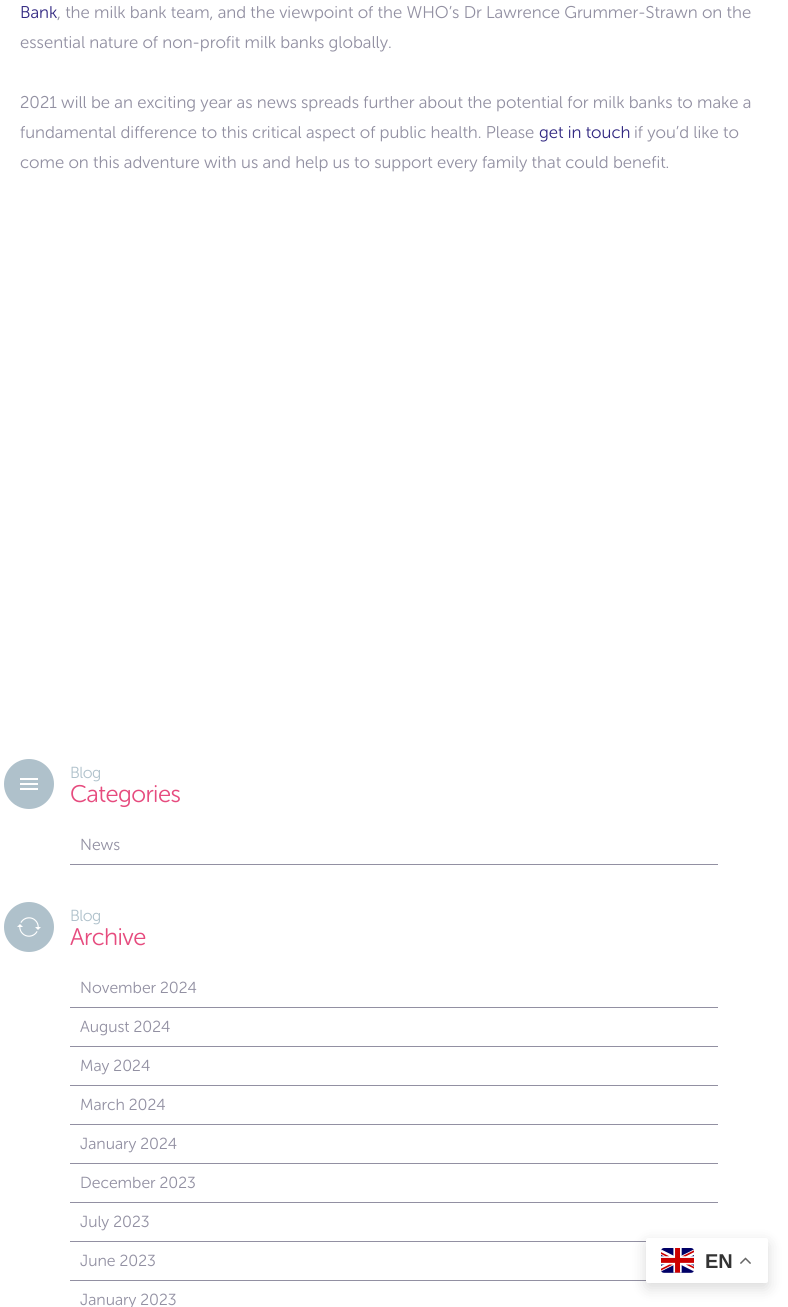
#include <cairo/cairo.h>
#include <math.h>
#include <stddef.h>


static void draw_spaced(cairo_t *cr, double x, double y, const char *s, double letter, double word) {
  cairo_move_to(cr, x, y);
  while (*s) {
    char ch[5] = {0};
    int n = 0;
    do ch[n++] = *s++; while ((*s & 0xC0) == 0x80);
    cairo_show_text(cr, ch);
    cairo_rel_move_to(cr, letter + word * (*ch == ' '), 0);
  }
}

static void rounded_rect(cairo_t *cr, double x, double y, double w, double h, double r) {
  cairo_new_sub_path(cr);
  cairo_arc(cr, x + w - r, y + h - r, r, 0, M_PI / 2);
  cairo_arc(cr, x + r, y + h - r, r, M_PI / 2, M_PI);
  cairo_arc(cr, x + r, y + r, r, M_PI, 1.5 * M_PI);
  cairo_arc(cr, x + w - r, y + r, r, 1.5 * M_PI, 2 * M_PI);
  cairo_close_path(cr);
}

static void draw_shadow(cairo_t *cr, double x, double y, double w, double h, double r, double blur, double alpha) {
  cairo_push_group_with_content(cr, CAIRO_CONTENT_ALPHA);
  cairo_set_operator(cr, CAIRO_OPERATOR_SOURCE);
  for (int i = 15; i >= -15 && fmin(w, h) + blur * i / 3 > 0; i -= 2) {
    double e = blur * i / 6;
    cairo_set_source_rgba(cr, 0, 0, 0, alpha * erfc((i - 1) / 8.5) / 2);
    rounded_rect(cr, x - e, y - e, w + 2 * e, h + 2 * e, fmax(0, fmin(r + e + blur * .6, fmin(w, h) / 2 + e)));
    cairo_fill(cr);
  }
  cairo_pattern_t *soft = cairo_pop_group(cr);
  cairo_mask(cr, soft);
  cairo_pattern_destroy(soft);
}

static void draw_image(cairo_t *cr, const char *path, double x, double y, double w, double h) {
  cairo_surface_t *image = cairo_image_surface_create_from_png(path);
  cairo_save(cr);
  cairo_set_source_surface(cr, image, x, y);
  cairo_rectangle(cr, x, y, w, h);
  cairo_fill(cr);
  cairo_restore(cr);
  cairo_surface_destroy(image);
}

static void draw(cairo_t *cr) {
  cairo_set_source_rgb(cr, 1, 1, 1);
  cairo_paint(cr);
  cairo_set_source_rgb(cr, 175 / 255.0, 193 / 255.0, 203 / 255.0);
  cairo_arc(cr, 29, 784, 25, 0, 2 * M_PI);
  cairo_fill(cr);
  draw_image(cr, "images/1.png", 20, 778, 18, 12);
  cairo_set_source_rgb(cr, 146 / 255.0, 144 / 255.0, 162 / 255.0);
  cairo_rectangle(cr, 70, 864, 648, 1);
  cairo_fill(cr);
  cairo_set_source_rgb(cr, 175 / 255.0, 193 / 255.0, 203 / 255.0);
  cairo_arc(cr, 29, 927, 25, 0, 2 * M_PI);
  cairo_fill(cr);
  draw_image(cr, "images/2.png", 17, 917, 24, 20);
  cairo_set_source_rgb(cr, 146 / 255.0, 144 / 255.0, 162 / 255.0);
  cairo_rectangle(cr, 70, 1007, 648, 1);
  cairo_fill(cr);
  cairo_rectangle(cr, 70, 1046, 648, 1);
  cairo_fill(cr);
  cairo_rectangle(cr, 70, 1085, 648, 1);
  cairo_fill(cr);
  cairo_rectangle(cr, 70, 1124, 648, 1);
  cairo_fill(cr);
  cairo_rectangle(cr, 70, 1163, 648, 1);
  cairo_fill(cr);
  cairo_rectangle(cr, 70, 1202, 648, 1);
  cairo_fill(cr);
  cairo_rectangle(cr, 70, 1241, 576, 1);
  cairo_fill(cr);
  cairo_rectangle(cr, 70, 1280, 576, 1);
  cairo_fill(cr);
  cairo_set_source_rgb(cr, 0, 0, 0);
  draw_shadow(cr, 646, 1243, 122, 45, 2, 7.5, 0.15);
  cairo_set_source_rgb(cr, 1, 1, 1);
  rounded_rect(cr, 646, 1238, 122, 45, 2);
  cairo_fill(cr);
  draw_image(cr, "images/3.png", 661, 1248, 33, 25);
  draw_image(cr, "images/4.png", 740, 1257, 11, 7);
  cairo_select_font_face(cr, "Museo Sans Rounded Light", CAIRO_FONT_SLANT_NORMAL, CAIRO_FONT_WEIGHT_NORMAL);
  cairo_set_font_size(cr, 17);
  cairo_set_source_rgb(cr, 49 / 255.0, 39 / 255.0, 129 / 255.0);
  cairo_move_to(cr, 20, 18);
  cairo_show_text(cr, "Bank");
  cairo_set_source_rgb(cr, 146 / 255.0, 144 / 255.0, 162 / 255.0);
  cairo_move_to(cr, 57, 18);
  cairo_show_text(cr, ", the milk bank team, and the viewpoint of the WHO’s Dr Lawrence Grummer-Strawn on the");
  cairo_move_to(cr, 20, 48);
  cairo_show_text(cr, "essential nature of non-profit milk banks globally.");
  cairo_move_to(cr, 20, 108);
  cairo_show_text(cr, "2021 will be an exciting year as news spreads further about the potential for milk banks to make a");
  cairo_move_to(cr, 20, 138);
  cairo_show_text(cr, "fundamental difference to this critical aspect of public health. Please");
  cairo_set_source_rgb(cr, 49 / 255.0, 39 / 255.0, 129 / 255.0);
  cairo_move_to(cr, 539, 138);
  cairo_show_text(cr, "get in touch");
  cairo_set_source_rgb(cr, 146 / 255.0, 144 / 255.0, 162 / 255.0);
  cairo_move_to(cr, 634, 138);
  cairo_show_text(cr, "if you’d like to");
  cairo_move_to(cr, 20, 168);
  cairo_show_text(cr, "come on this adventure with us and help us to support every family that could benefit.");
  cairo_set_font_size(cr, 16);
  cairo_set_source_rgb(cr, 175 / 255.0, 193 / 255.0, 203 / 255.0);
  draw_spaced(cr, 70, 778, "Blog", -0.5, 0);
  cairo_set_font_size(cr, 24);
  cairo_set_source_rgb(cr, 230 / 255.0, 75 / 255.0, 126 / 255.0);
  draw_spaced(cr, 70, 802, "Categories", -0.5, 0);
  cairo_set_font_size(cr, 16);
  cairo_set_source_rgb(cr, 146 / 255.0, 144 / 255.0, 162 / 255.0);
  cairo_move_to(cr, 80, 850);
  cairo_show_text(cr, "News");
  cairo_set_source_rgb(cr, 175 / 255.0, 193 / 255.0, 203 / 255.0);
  draw_spaced(cr, 70, 921, "Blog", -0.5, 0);
  cairo_set_font_size(cr, 24);
  cairo_set_source_rgb(cr, 230 / 255.0, 75 / 255.0, 126 / 255.0);
  draw_spaced(cr, 70, 945, "Archive", -0.5, 0);
  cairo_set_font_size(cr, 16);
  cairo_set_source_rgb(cr, 146 / 255.0, 144 / 255.0, 162 / 255.0);
  cairo_move_to(cr, 80, 993);
  cairo_show_text(cr, "November 2024");
  cairo_move_to(cr, 80, 1032);
  cairo_show_text(cr, "August 2024");
  cairo_move_to(cr, 80, 1071);
  cairo_show_text(cr, "May 2024");
  cairo_move_to(cr, 80, 1110);
  cairo_show_text(cr, "March 2024");
  cairo_move_to(cr, 80, 1149);
  cairo_show_text(cr, "January 2024");
  cairo_move_to(cr, 80, 1188);
  cairo_show_text(cr, "December 2023");
  cairo_move_to(cr, 80, 1227);
  cairo_show_text(cr, "July 2023");
  cairo_move_to(cr, 80, 1266);
  cairo_show_text(cr, "June 2023");
  cairo_move_to(cr, 80, 1305);
  cairo_show_text(cr, "January 2023");
  cairo_select_font_face(cr, "Liberation Sans", CAIRO_FONT_SLANT_NORMAL, CAIRO_FONT_WEIGHT_BOLD);
  cairo_set_font_size(cr, 20);
  cairo_set_source_rgb(cr, 51 / 255.0, 51 / 255.0, 51 / 255.0);
  cairo_move_to(cr, 705, 1268);
  cairo_show_text(cr, "EN");
}

int main(void) {
  cairo_surface_t *surface = cairo_image_surface_create(CAIRO_FORMAT_RGB24, 788, 1307);
  cairo_t *cr = cairo_create(surface);
  cairo_font_options_t *options = cairo_font_options_create();
  cairo_font_options_set_hint_metrics(options, CAIRO_HINT_METRICS_OFF);
  cairo_font_options_set_hint_style(options, CAIRO_HINT_STYLE_NONE);
  cairo_set_font_options(cr, options);
  cairo_set_miter_limit(cr, 4);
  draw(cr);
  cairo_surface_write_to_png(surface, "out.png");
  cairo_font_options_destroy(options);
  cairo_destroy(cr);
  cairo_surface_destroy(surface);
  return 0;
}
